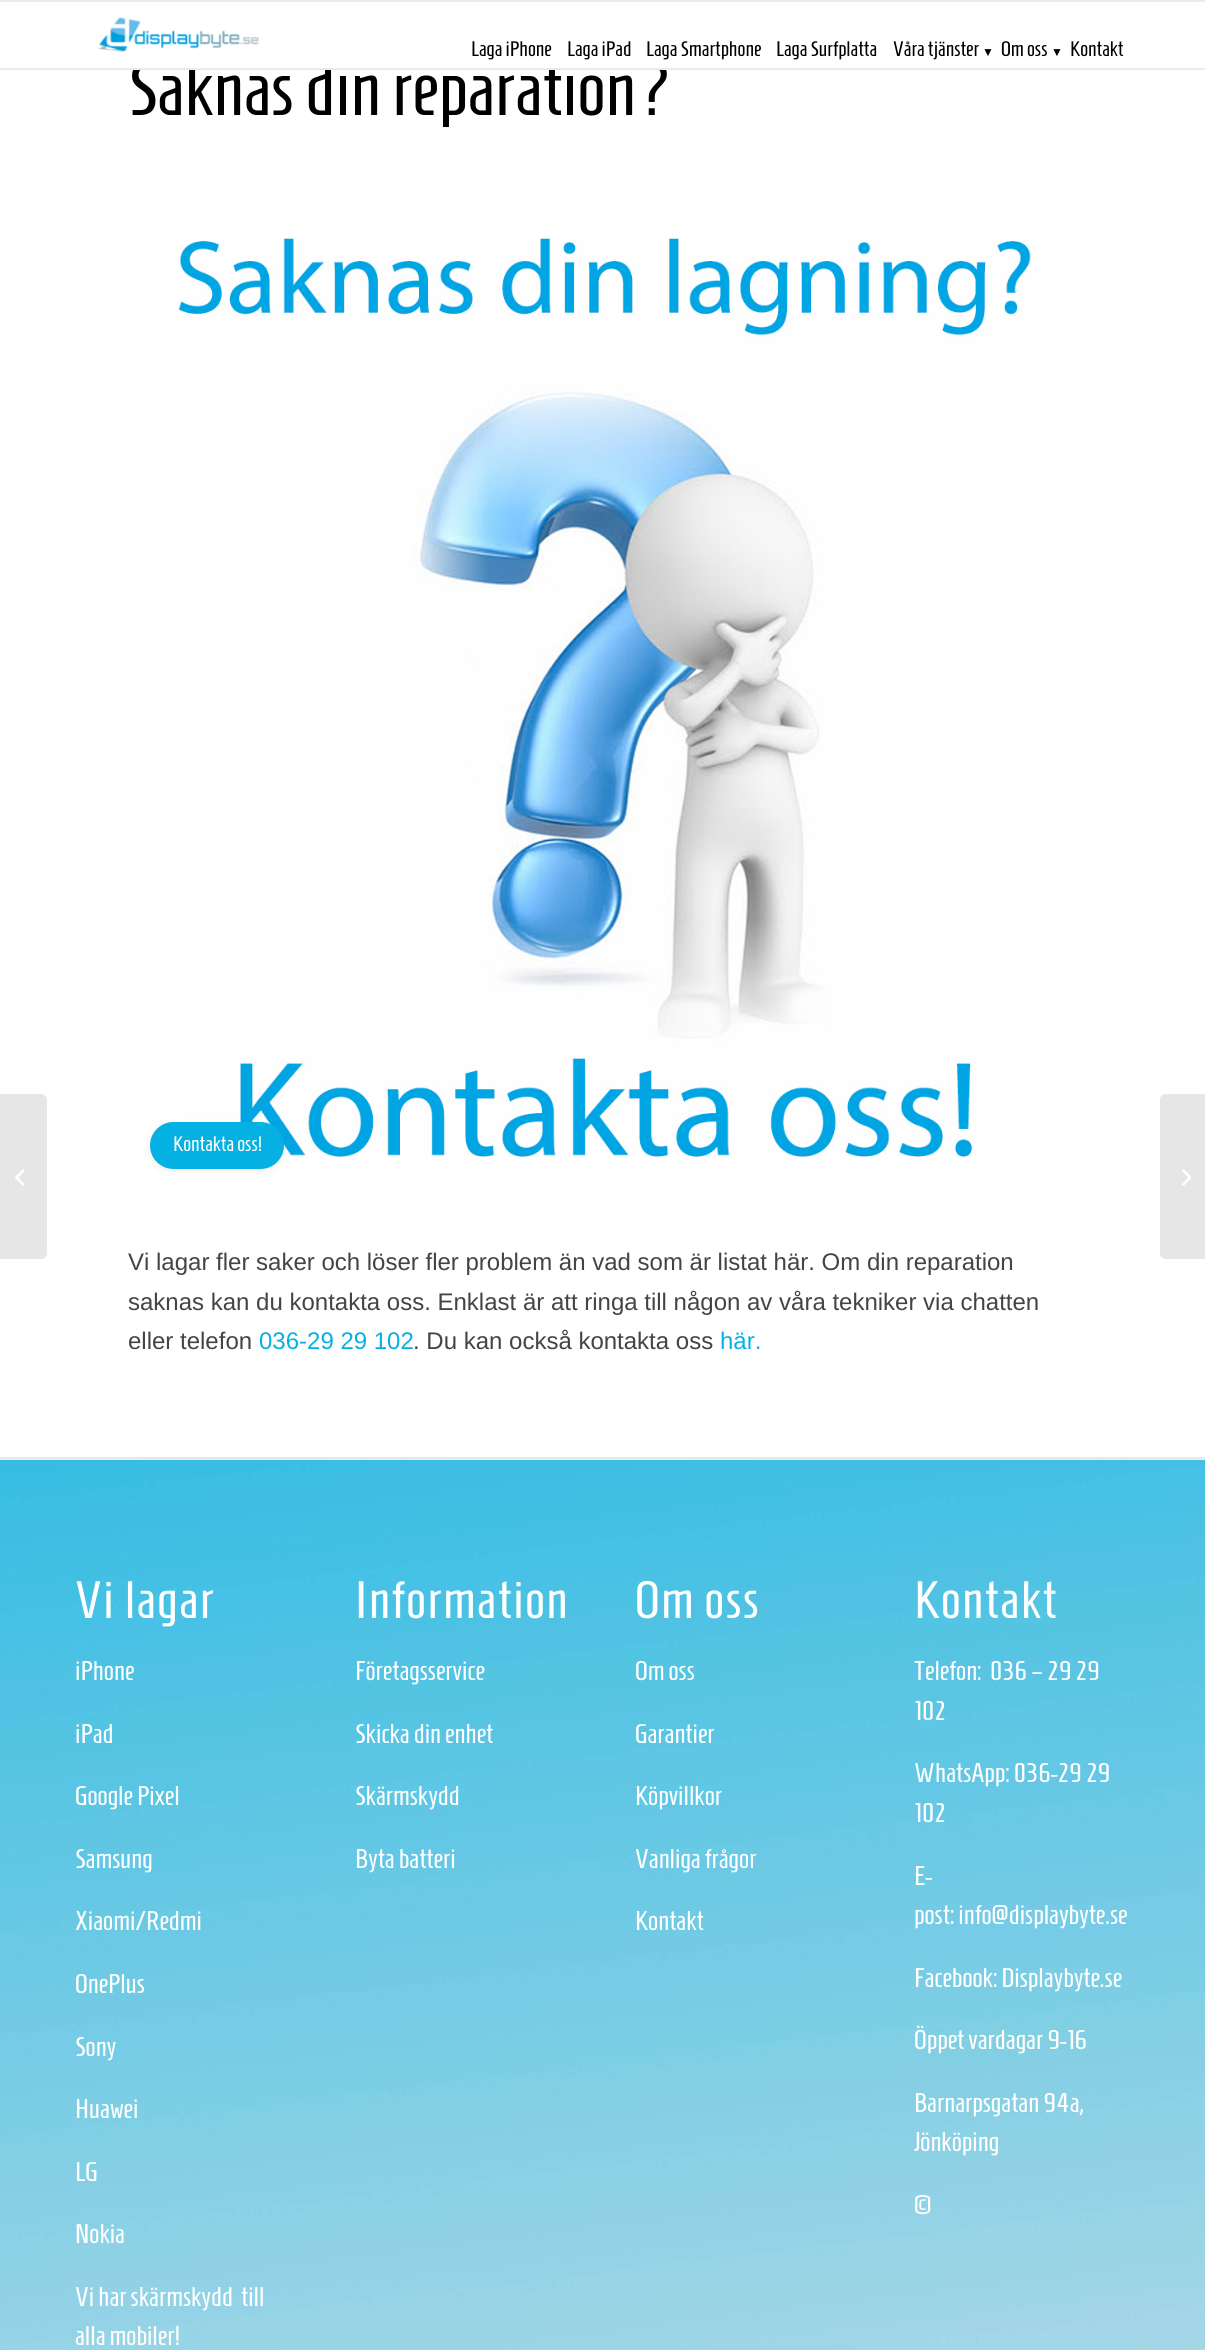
#include <cairo/cairo.h>
#include <math.h>
#include <stddef.h>


static void draw_spaced(cairo_t *cr, double x, double y, const char *s, double letter, double word) {
  cairo_move_to(cr, x, y);
  while (*s) {
    char ch[5] = {0};
    int n = 0;
    do ch[n++] = *s++; while ((*s & 0xC0) == 0x80);
    cairo_show_text(cr, ch);
    cairo_rel_move_to(cr, letter + word * (*ch == ' '), 0);
  }
}

static void rounded_rect(cairo_t *cr, double x, double y, double w, double h, double r) {
  cairo_new_sub_path(cr);
  cairo_arc(cr, x + w - r, y + h - r, r, 0, M_PI / 2);
  cairo_arc(cr, x + r, y + h - r, r, M_PI / 2, M_PI);
  cairo_arc(cr, x + r, y + r, r, M_PI, 1.5 * M_PI);
  cairo_arc(cr, x + w - r, y + r, r, 1.5 * M_PI, 2 * M_PI);
  cairo_close_path(cr);
}

static void draw_shadow(cairo_t *cr, double x, double y, double w, double h, double r, double blur, double alpha) {
  cairo_push_group_with_content(cr, CAIRO_CONTENT_ALPHA);
  cairo_set_operator(cr, CAIRO_OPERATOR_SOURCE);
  for (int i = 15; i >= -15 && fmin(w, h) + blur * i / 3 > 0; i -= 2) {
    double e = blur * i / 6;
    cairo_set_source_rgba(cr, 0, 0, 0, alpha * erfc((i - 1) / 8.5) / 2);
    rounded_rect(cr, x - e, y - e, w + 2 * e, h + 2 * e, fmax(0, fmin(r + e + blur * .6, fmin(w, h) / 2 + e)));
    cairo_fill(cr);
  }
  cairo_pattern_t *soft = cairo_pop_group(cr);
  cairo_mask(cr, soft);
  cairo_pattern_destroy(soft);
}

static void draw_image(cairo_t *cr, const char *path, double x, double y, double w, double h) {
  cairo_surface_t *image = cairo_image_surface_create_from_png(path);
  cairo_save(cr);
  cairo_set_source_surface(cr, image, x, y);
  cairo_rectangle(cr, x, y, w, h);
  cairo_fill(cr);
  cairo_restore(cr);
  cairo_surface_destroy(image);
}

static void draw(cairo_t *cr) {
  cairo_set_source_rgb(cr, 1, 1, 1);
  cairo_paint(cr);
  cairo_set_source_rgb(cr, 230 / 255.0, 230 / 255.0, 230 / 255.0);
  cairo_new_path(cr);
  cairo_move_to(cr, 0, 1094);
  cairo_line_to(cr, 41, 1094);
  cairo_curve_to(cr, 44.5, 1094, 47, 1096.5, 47, 1100);
  cairo_line_to(cr, 47, 1253);
  cairo_curve_to(cr, 47, 1256.5, 44.5, 1259, 41, 1259);
  cairo_line_to(cr, 0, 1259);
  cairo_close_path(cr);
  cairo_fill(cr);
  draw_image(cr, "images/1.png", 15, 1169, 9, 17);
  cairo_set_source_rgb(cr, 235 / 255.0, 235 / 255.0, 235 / 255.0);
  cairo_rectangle(cr, 0, 0, 1205, 2);
  cairo_fill(cr);
  draw_image(cr, "images/2.png", 98, 17, 161, 36);
  draw_image(cr, "images/3.png", 178, 238, 853, 919);
  cairo_set_source_rgb(cr, 0, 0, 0);
  draw_shadow(cr, 150, 1125, 134, 47, 23.5, 4, 0.05);
  cairo_set_source_rgb(cr, 4 / 255.0, 177 / 255.0, 226 / 255.0);
  rounded_rect(cr, 150, 1122, 134, 47, 23.5);
  cairo_fill(cr);
  draw_image(cr, "images/4.png", 0, 1457, 1205, 893);
  cairo_set_source_rgb(cr, 235 / 255.0, 235 / 255.0, 235 / 255.0);
  cairo_rectangle(cr, 0, 1458, 1205, 2);
  cairo_fill(cr);
  cairo_set_source_rgb(cr, 230 / 255.0, 230 / 255.0, 230 / 255.0);
  cairo_new_path(cr);
  cairo_move_to(cr, 1166, 1094);
  cairo_line_to(cr, 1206, 1094);
  cairo_line_to(cr, 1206, 1259);
  cairo_line_to(cr, 1166, 1259);
  cairo_curve_to(cr, 1162.5, 1259, 1160, 1256.5, 1160, 1253);
  cairo_line_to(cr, 1160, 1100);
  cairo_curve_to(cr, 1160, 1096.5, 1162.5, 1094, 1166, 1094);
  cairo_close_path(cr);
  cairo_fill(cr);
  draw_image(cr, "images/5.png", 1182, 1169, 9, 17);
  cairo_select_font_face(cr, "Homenaje", CAIRO_FONT_SLANT_NORMAL, CAIRO_FONT_WEIGHT_NORMAL);
  cairo_set_font_size(cr, 21);
  cairo_set_source_rgb(cr, 0, 0, 0);
  cairo_move_to(cr, 471, 56);
  cairo_show_text(cr, "Laga iPhone");
  cairo_move_to(cr, 567, 56);
  cairo_show_text(cr, "Laga iPad");
  cairo_move_to(cr, 646, 56);
  cairo_show_text(cr, "Laga Smartphone");
  cairo_move_to(cr, 776, 56);
  cairo_show_text(cr, "Laga Surfplatta");
  cairo_move_to(cr, 893, 56);
  cairo_show_text(cr, "Våra tjänster");
  cairo_select_font_face(cr, "Liberation Sans", CAIRO_FONT_SLANT_NORMAL, CAIRO_FONT_WEIGHT_NORMAL);
  cairo_set_font_size(cr, 12);
  cairo_move_to(cr, 982, 56);
  cairo_show_text(cr, "▼");
  cairo_select_font_face(cr, "Homenaje", CAIRO_FONT_SLANT_NORMAL, CAIRO_FONT_WEIGHT_NORMAL);
  cairo_set_font_size(cr, 21);
  cairo_move_to(cr, 1001, 56);
  cairo_show_text(cr, "Om oss");
  cairo_select_font_face(cr, "Liberation Sans", CAIRO_FONT_SLANT_NORMAL, CAIRO_FONT_WEIGHT_NORMAL);
  cairo_set_font_size(cr, 12);
  cairo_move_to(cr, 1051, 56);
  cairo_show_text(cr, "▼");
  cairo_select_font_face(cr, "Homenaje", CAIRO_FONT_SLANT_NORMAL, CAIRO_FONT_WEIGHT_NORMAL);
  cairo_set_font_size(cr, 21);
  cairo_move_to(cr, 1070, 56);
  cairo_show_text(cr, "Kontakt");
  cairo_set_font_size(cr, 75);
  cairo_move_to(cr, 128, 115);
  cairo_show_text(cr, "Saknas din reparation?");
  cairo_set_source_rgb(cr, 235 / 255.0, 235 / 255.0, 235 / 255.0);
  cairo_rectangle(cr, 0, 68, 1205, 2);
  cairo_fill(cr);
  cairo_set_source_rgb(cr, 1, 1, 1);
  cairo_rectangle(cr, 134, 62, 531, 6);
  cairo_fill(cr);
  cairo_set_font_size(cr, 21);
  cairo_move_to(cr, 173, 1151);
  cairo_show_text(cr, "Kontakta oss!");
  cairo_select_font_face(cr, "Liberation Sans", CAIRO_FONT_SLANT_NORMAL, CAIRO_FONT_WEIGHT_NORMAL);
  cairo_set_font_size(cr, 24);
  cairo_set_source_rgb(cr, 68 / 255.0, 68 / 255.0, 68 / 255.0);
  cairo_move_to(cr, 128, 1270);
  cairo_show_text(cr, "Vi lagar fler saker och löser fler problem än vad som är listat här. Om din reparation");
  cairo_move_to(cr, 128, 1310);
  cairo_show_text(cr, "saknas kan du kontakta oss. Enklast är att ringa till någon av våra tekniker via chatten");
  cairo_move_to(cr, 128, 1349);
  cairo_show_text(cr, "eller telefon");
  cairo_set_source_rgb(cr, 4 / 255.0, 177 / 255.0, 226 / 255.0);
  cairo_move_to(cr, 259, 1349);
  cairo_show_text(cr, "036-29 29 102");
  cairo_set_source_rgb(cr, 68 / 255.0, 68 / 255.0, 68 / 255.0);
  cairo_move_to(cr, 413, 1349);
  cairo_show_text(cr, ". Du kan också kontakta oss");
  cairo_set_source_rgb(cr, 4 / 255.0, 177 / 255.0, 226 / 255.0);
  cairo_move_to(cr, 720, 1349);
  cairo_show_text(cr, "här.");
  cairo_select_font_face(cr, "Homenaje", CAIRO_FONT_SLANT_NORMAL, CAIRO_FONT_WEIGHT_NORMAL);
  cairo_set_font_size(cr, 52.5);
  cairo_set_source_rgb(cr, 1, 1, 1);
  draw_spaced(cr, 75, 1618, "Vi lagar", 1.5, 0);
  cairo_set_font_size(cr, 27);
  cairo_move_to(cr, 75, 1680);
  cairo_show_text(cr, "iPhone");
  cairo_move_to(cr, 75, 1743);
  cairo_show_text(cr, "iPad");
  cairo_move_to(cr, 75, 1805);
  cairo_show_text(cr, "Google Pixel");
  cairo_move_to(cr, 75, 1868);
  cairo_show_text(cr, "Samsung");
  cairo_move_to(cr, 75, 1930);
  cairo_show_text(cr, "Xiaomi/Redmi");
  cairo_move_to(cr, 75, 1993);
  cairo_show_text(cr, "OnePlus");
  cairo_move_to(cr, 75, 2056);
  cairo_show_text(cr, "Sony");
  cairo_move_to(cr, 75, 2118);
  cairo_show_text(cr, "Huawei");
  cairo_move_to(cr, 75, 2181);
  cairo_show_text(cr, "LG");
  cairo_move_to(cr, 75, 2243);
  cairo_show_text(cr, "Nokia");
  cairo_move_to(cr, 75, 2306);
  cairo_show_text(cr, "Vi har skärmskydd  till");
  cairo_move_to(cr, 75, 2345);
  cairo_show_text(cr, "alla mobiler!");
  cairo_set_font_size(cr, 52.5);
  draw_spaced(cr, 355, 1618, "Information", 1.5, 0);
  cairo_set_font_size(cr, 27);
  cairo_move_to(cr, 355, 1680);
  cairo_show_text(cr, "Företagsservice");
  cairo_move_to(cr, 355, 1743);
  cairo_show_text(cr, "Skicka din enhet");
  cairo_move_to(cr, 355, 1805);
  cairo_show_text(cr, "Skärmskydd");
  cairo_move_to(cr, 355, 1868);
  cairo_show_text(cr, "Byta batteri");
  cairo_set_font_size(cr, 52.5);
  draw_spaced(cr, 635, 1618, "Om oss", 1.5, 0);
  cairo_set_font_size(cr, 27);
  cairo_move_to(cr, 635, 1680);
  cairo_show_text(cr, "Om oss");
  cairo_move_to(cr, 635, 1743);
  cairo_show_text(cr, "Garantier");
  cairo_move_to(cr, 635, 1805);
  cairo_show_text(cr, "Köpvillkor");
  cairo_move_to(cr, 635, 1868);
  cairo_show_text(cr, "Vanliga frågor");
  cairo_move_to(cr, 635, 1930);
  cairo_show_text(cr, "Kontakt");
  cairo_set_font_size(cr, 52.5);
  draw_spaced(cr, 914, 1618, "Kontakt", 1.5, 0);
  cairo_set_font_size(cr, 27);
  cairo_move_to(cr, 914, 1680);
  cairo_show_text(cr, "Telefon:");
  cairo_move_to(cr, 990, 1680);
  cairo_show_text(cr, "036 – 29 29");
  cairo_move_to(cr, 914, 1720);
  cairo_show_text(cr, "102");
  cairo_move_to(cr, 914, 1782);
  cairo_show_text(cr, "WhatsApp: 036-29 29");
  cairo_move_to(cr, 914, 1822);
  cairo_show_text(cr, "102");
  cairo_move_to(cr, 914, 1885);
  cairo_show_text(cr, "E-");
  cairo_move_to(cr, 914, 1924);
  cairo_show_text(cr, "post: info@displaybyte.se");
  cairo_move_to(cr, 914, 1987);
  cairo_show_text(cr, "Facebook: Displaybyte.se");
  cairo_move_to(cr, 914, 2049);
  cairo_show_text(cr, "Öppet vardagar 9-16");
  cairo_move_to(cr, 914, 2112);
  cairo_show_text(cr, "Barnarpsgatan 94a,");
  cairo_move_to(cr, 914, 2151);
  cairo_show_text(cr, "Jönköping");
  cairo_move_to(cr, 914, 2214);
  cairo_show_text(cr, "©");
}

int main(void) {
  cairo_surface_t *surface = cairo_image_surface_create(CAIRO_FORMAT_RGB24, 1205, 2350);
  cairo_t *cr = cairo_create(surface);
  cairo_font_options_t *options = cairo_font_options_create();
  cairo_font_options_set_hint_metrics(options, CAIRO_HINT_METRICS_OFF);
  cairo_font_options_set_hint_style(options, CAIRO_HINT_STYLE_NONE);
  cairo_set_font_options(cr, options);
  cairo_set_miter_limit(cr, 4);
  draw(cr);
  cairo_surface_write_to_png(surface, "out.png");
  cairo_font_options_destroy(options);
  cairo_destroy(cr);
  cairo_surface_destroy(surface);
  return 0;
}
